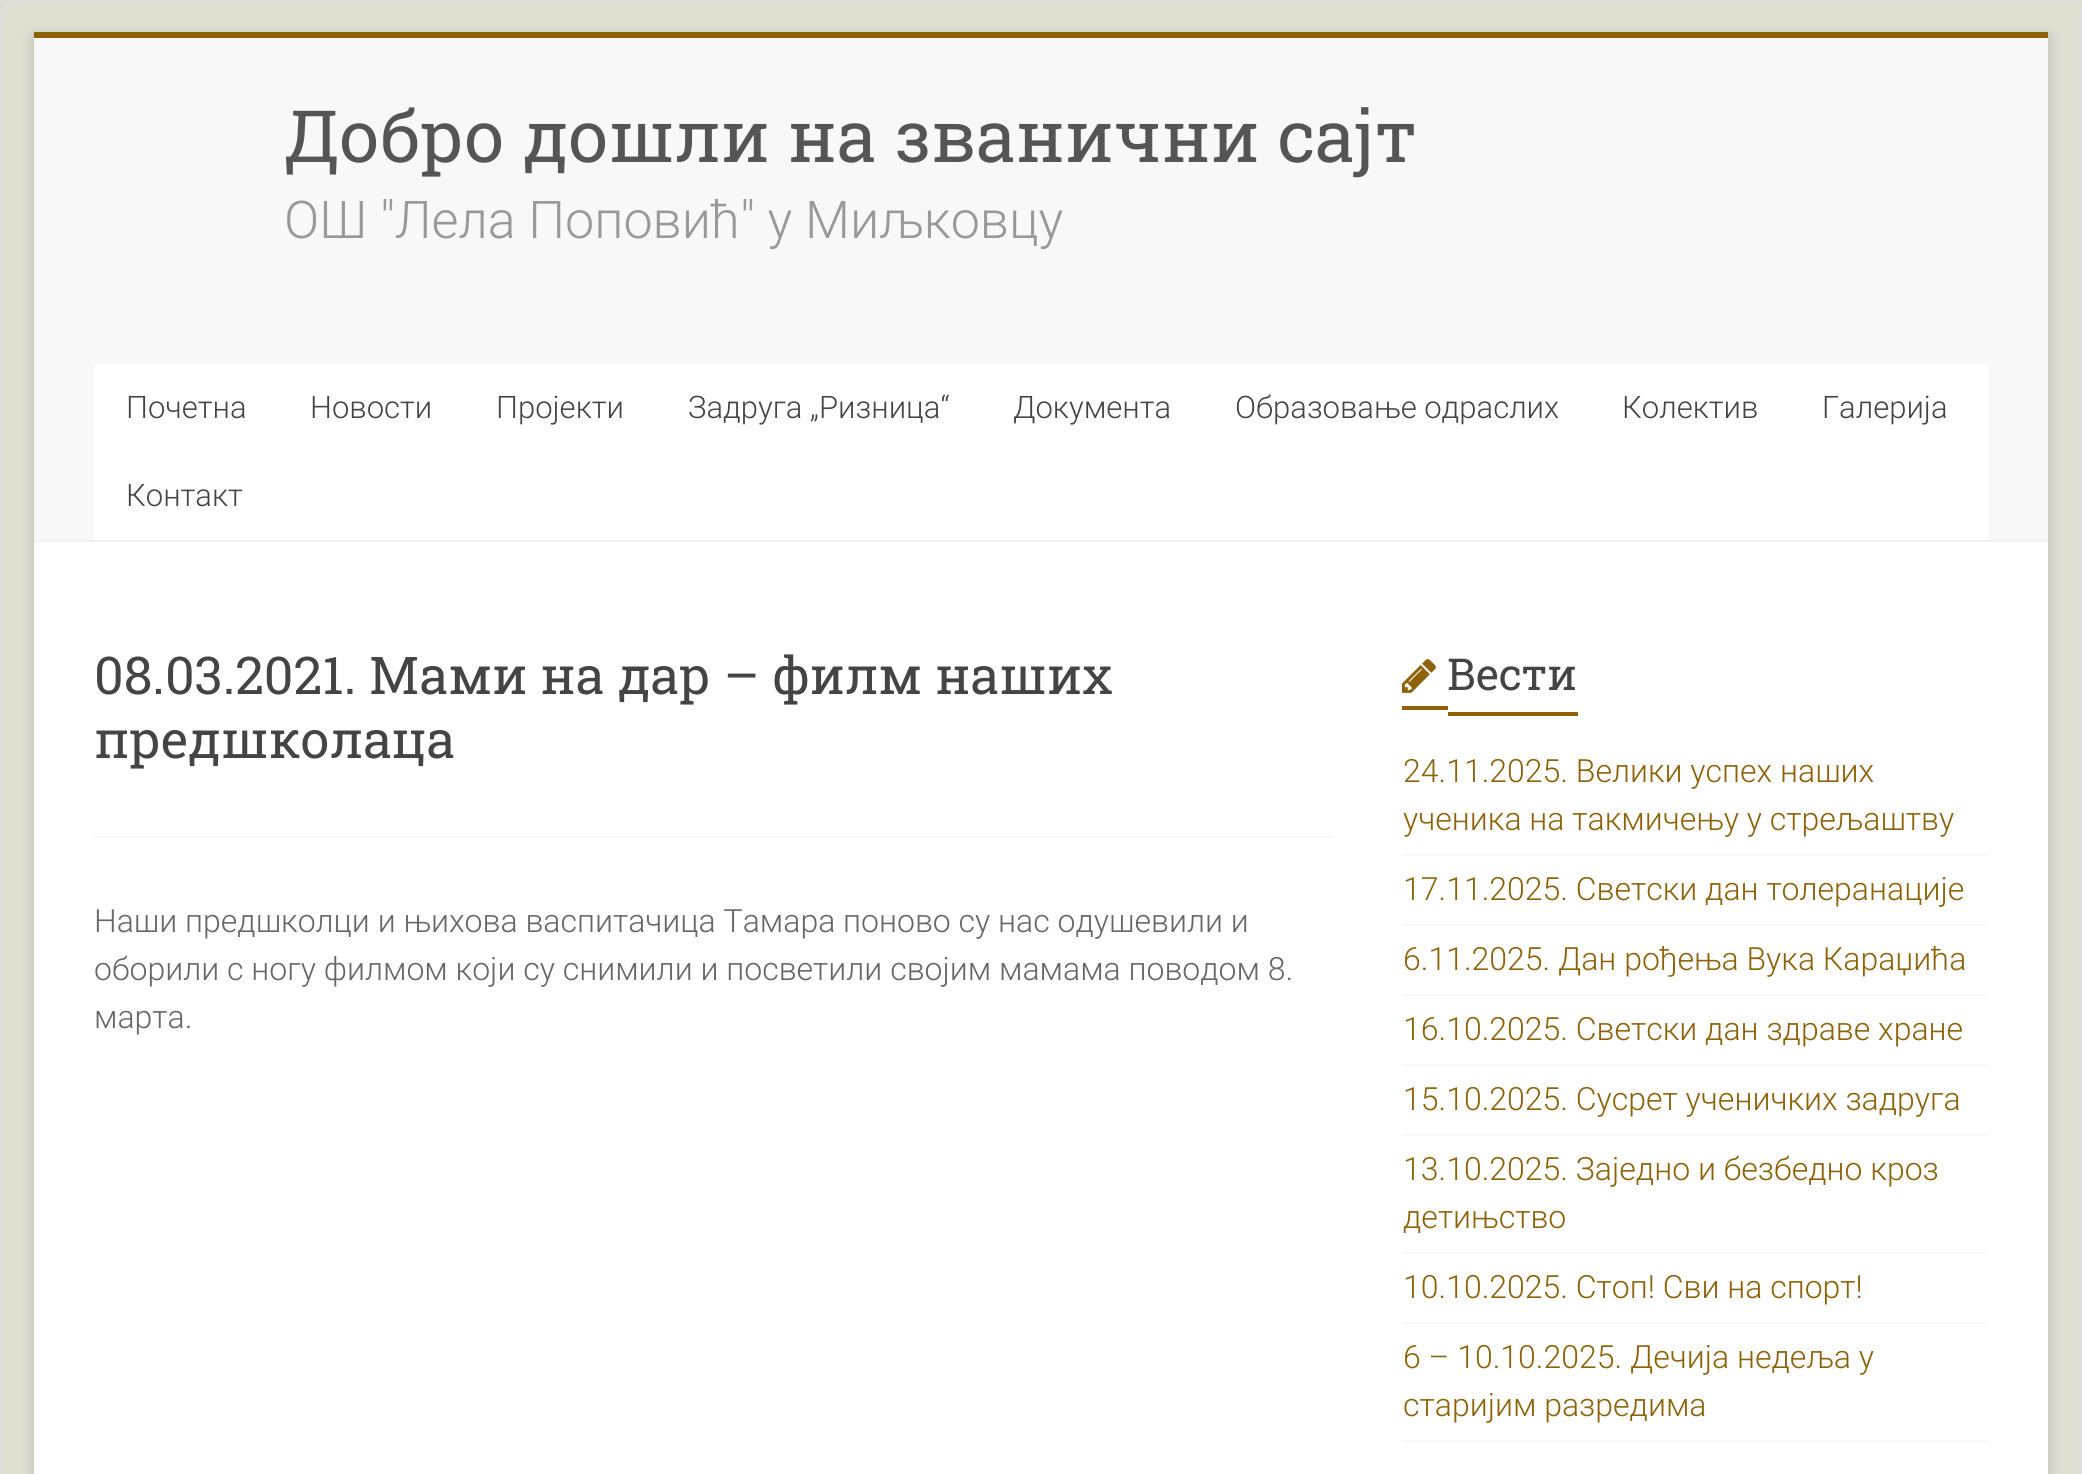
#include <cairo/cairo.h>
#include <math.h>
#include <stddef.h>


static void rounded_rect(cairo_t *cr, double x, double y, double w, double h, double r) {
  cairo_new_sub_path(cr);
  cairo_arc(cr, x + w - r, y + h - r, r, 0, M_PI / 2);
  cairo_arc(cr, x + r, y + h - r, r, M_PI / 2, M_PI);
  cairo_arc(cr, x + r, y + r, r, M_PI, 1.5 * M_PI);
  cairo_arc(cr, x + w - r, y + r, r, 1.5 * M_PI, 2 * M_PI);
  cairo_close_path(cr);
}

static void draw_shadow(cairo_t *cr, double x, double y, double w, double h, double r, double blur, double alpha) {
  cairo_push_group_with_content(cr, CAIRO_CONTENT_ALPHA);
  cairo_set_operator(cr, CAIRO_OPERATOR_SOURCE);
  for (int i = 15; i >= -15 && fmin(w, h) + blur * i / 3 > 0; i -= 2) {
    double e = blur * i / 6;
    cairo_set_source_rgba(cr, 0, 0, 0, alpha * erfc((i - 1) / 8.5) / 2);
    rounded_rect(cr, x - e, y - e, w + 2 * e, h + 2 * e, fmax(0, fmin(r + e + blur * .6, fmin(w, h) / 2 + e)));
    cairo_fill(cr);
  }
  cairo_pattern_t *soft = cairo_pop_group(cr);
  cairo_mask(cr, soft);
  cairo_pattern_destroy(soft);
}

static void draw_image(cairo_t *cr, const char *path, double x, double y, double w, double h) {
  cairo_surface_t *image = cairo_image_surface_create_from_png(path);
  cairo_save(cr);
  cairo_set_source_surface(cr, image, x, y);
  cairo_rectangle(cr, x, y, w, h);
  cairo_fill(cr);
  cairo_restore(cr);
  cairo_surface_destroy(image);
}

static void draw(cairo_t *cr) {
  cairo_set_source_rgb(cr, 224 / 255.0, 222 / 255.0, 209 / 255.0);
  cairo_paint(cr);
  cairo_save(cr);
  cairo_set_fill_rule(cr, CAIRO_FILL_RULE_EVEN_ODD);
  cairo_new_path(cr);
  cairo_move_to(cr, 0, 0);
  cairo_line_to(cr, 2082, 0);
  cairo_line_to(cr, 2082, 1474);
  cairo_line_to(cr, 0, 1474);
  cairo_close_path(cr);
  cairo_move_to(cr, 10, 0);
  cairo_line_to(cr, 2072, 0);
  cairo_curve_to(cr, 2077.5, 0, 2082, 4.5, 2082, 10);
  cairo_line_to(cr, 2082, 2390);
  cairo_curve_to(cr, 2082, 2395.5, 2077.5, 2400, 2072, 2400);
  cairo_line_to(cr, 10, 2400);
  cairo_curve_to(cr, 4.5, 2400, 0, 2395.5, 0, 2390);
  cairo_line_to(cr, 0, 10);
  cairo_curve_to(cr, 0, 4.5, 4.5, 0, 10, 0);
  cairo_close_path(cr);
  cairo_clip(cr);
  cairo_set_source_rgb(cr, 0, 0, 0);
  draw_shadow(cr, 0, 2, 2082, 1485, 10, 1, 1);
  cairo_restore(cr);
  rounded_rect(cr, 1, 1, 2080, 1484, 9);
  cairo_set_source_rgb(cr, 221 / 255.0, 221 / 255.0, 221 / 255.0);
  cairo_stroke(cr);
  cairo_set_source_rgb(cr, 100 / 255.0, 100 / 255.0, 100 / 255.0);
  draw_shadow(cr, 34, 36, 2014, 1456, 0, 6, 0.3);
  cairo_set_source_rgb(cr, 1, 1, 1);
  cairo_rectangle(cr, 34, 542, 2014, 932);
  cairo_fill(cr);
  cairo_set_source_rgb(cr, 142 / 255.0, 98 / 255.0, 9 / 255.0);
  cairo_rectangle(cr, 34, 32, 2014, 6);
  cairo_fill(cr);
  cairo_set_source_rgb(cr, 248 / 255.0, 248 / 255.0, 248 / 255.0);
  cairo_rectangle(cr, 34, 38, 2014, 502);
  cairo_fill(cr);
  cairo_set_source_rgb(cr, 242 / 255.0, 242 / 255.0, 242 / 255.0);
  cairo_rectangle(cr, 34, 540, 2014, 2);
  cairo_fill(cr);
  cairo_set_source_rgb(cr, 1, 1, 1);
  cairo_rectangle(cr, 94, 364, 1894, 176);
  cairo_fill(cr);
  cairo_set_source_rgb(cr, 248 / 255.0, 248 / 255.0, 248 / 255.0);
  cairo_rectangle(cr, 94, 836, 1240, 2);
  cairo_fill(cr);
  draw_image(cr, "images/1.png", 1402, 659, 34, 34);
  cairo_set_source_rgb(cr, 142 / 255.0, 98 / 255.0, 9 / 255.0);
  cairo_rectangle(cr, 1402, 706, 46, 4);
  cairo_fill(cr);
  cairo_rectangle(cr, 1448, 712, 130, 4);
  cairo_fill(cr);
  cairo_set_source_rgb(cr, 248 / 255.0, 248 / 255.0, 248 / 255.0);
  cairo_rectangle(cr, 1402, 854, 586, 2);
  cairo_fill(cr);
  cairo_rectangle(cr, 1402, 924, 586, 2);
  cairo_fill(cr);
  cairo_rectangle(cr, 1402, 994, 586, 2);
  cairo_fill(cr);
  cairo_rectangle(cr, 1402, 1064, 586, 2);
  cairo_fill(cr);
  cairo_rectangle(cr, 1402, 1134, 586, 2);
  cairo_fill(cr);
  cairo_rectangle(cr, 1402, 1252, 586, 2);
  cairo_fill(cr);
  cairo_rectangle(cr, 1402, 1322, 586, 2);
  cairo_fill(cr);
  cairo_rectangle(cr, 1402, 1440, 586, 2);
  cairo_fill(cr);
  cairo_select_font_face(cr, "Roboto Slab", CAIRO_FONT_SLANT_NORMAL, CAIRO_FONT_WEIGHT_NORMAL);
  cairo_set_font_size(cr, 72);
  cairo_set_source_rgb(cr, 85 / 255.0, 85 / 255.0, 85 / 255.0);
  cairo_move_to(cr, 284, 162);
  cairo_show_text(cr, "Добро дошли на званични сајт");
  cairo_select_font_face(cr, "Roboto Light", CAIRO_FONT_SLANT_NORMAL, CAIRO_FONT_WEIGHT_NORMAL);
  cairo_set_font_size(cr, 52);
  cairo_set_source_rgb(cr, 153 / 255.0, 153 / 255.0, 153 / 255.0);
  cairo_move_to(cr, 284, 238);
  cairo_show_text(cr, "ОШ \"Лела Поповић\" у Миљковцу");
  cairo_set_font_size(cr, 31);
  cairo_set_source_rgb(cr, 68 / 255.0, 68 / 255.0, 68 / 255.0);
  cairo_move_to(cr, 126, 418);
  cairo_show_text(cr, "Почетна");
  cairo_move_to(cr, 310, 418);
  cairo_show_text(cr, "Новости");
  cairo_move_to(cr, 496, 418);
  cairo_show_text(cr, "Пројекти");
  cairo_move_to(cr, 688, 418);
  cairo_show_text(cr, "Задруга „Ризница“");
  cairo_move_to(cr, 1013, 418);
  cairo_show_text(cr, "Документа");
  cairo_move_to(cr, 1235, 418);
  cairo_show_text(cr, "Образовање одраслих");
  cairo_move_to(cr, 1622, 418);
  cairo_show_text(cr, "Колектив");
  cairo_move_to(cr, 1822, 418);
  cairo_show_text(cr, "Галерија");
  cairo_move_to(cr, 126, 506);
  cairo_show_text(cr, "Контакт");
  cairo_select_font_face(cr, "Roboto Slab", CAIRO_FONT_SLANT_NORMAL, CAIRO_FONT_WEIGHT_NORMAL);
  cairo_set_font_size(cr, 52);
  cairo_move_to(cr, 94, 694);
  cairo_show_text(cr, "08.03.2021. Мами на дар – филм наших");
  cairo_move_to(cr, 94, 758);
  cairo_show_text(cr, "предшколаца");
  cairo_select_font_face(cr, "Roboto Light", CAIRO_FONT_SLANT_NORMAL, CAIRO_FONT_WEIGHT_NORMAL);
  cairo_set_font_size(cr, 32);
  cairo_set_source_rgb(cr, 102 / 255.0, 102 / 255.0, 102 / 255.0);
  cairo_move_to(cr, 94, 932);
  cairo_show_text(cr, "Наши предшколци и њихова васпитачица Тамара поново су нас одушевили и");
  cairo_move_to(cr, 94, 980);
  cairo_show_text(cr, "оборили с ногу филмом који су снимили и посветили својим мамама поводом 8.");
  cairo_move_to(cr, 94, 1028);
  cairo_show_text(cr, "марта.");
  cairo_select_font_face(cr, "Roboto Slab", CAIRO_FONT_SLANT_NORMAL, CAIRO_FONT_WEIGHT_NORMAL);
  cairo_set_font_size(cr, 44);
  cairo_set_source_rgb(cr, 68 / 255.0, 68 / 255.0, 68 / 255.0);
  cairo_move_to(cr, 1447, 690);
  cairo_show_text(cr, "Вести");
  cairo_select_font_face(cr, "Roboto Light", CAIRO_FONT_SLANT_NORMAL, CAIRO_FONT_WEIGHT_NORMAL);
  cairo_set_font_size(cr, 32);
  cairo_set_source_rgb(cr, 142 / 255.0, 98 / 255.0, 9 / 255.0);
  cairo_move_to(cr, 1403, 782);
  cairo_show_text(cr, "24.11.2025. Велики успех наших");
  cairo_move_to(cr, 1403, 830);
  cairo_show_text(cr, "ученика на такмичењу у стрељаштву");
  cairo_move_to(cr, 1403, 900);
  cairo_show_text(cr, "17.11.2025. Светски дан толеранације");
  cairo_move_to(cr, 1403, 970);
  cairo_show_text(cr, "6.11.2025. Дан рођења Вука Караџића");
  cairo_move_to(cr, 1403, 1040);
  cairo_show_text(cr, "16.10.2025. Светски дан здраве хране");
  cairo_move_to(cr, 1403, 1110);
  cairo_show_text(cr, "15.10.2025. Сусрет ученичких задруга");
  cairo_move_to(cr, 1403, 1180);
  cairo_show_text(cr, "13.10.2025. Заједно и безбедно кроз");
  cairo_move_to(cr, 1403, 1228);
  cairo_show_text(cr, "детињство");
  cairo_move_to(cr, 1403, 1298);
  cairo_show_text(cr, "10.10.2025. Стоп! Сви на спорт!");
  cairo_move_to(cr, 1403, 1368);
  cairo_show_text(cr, "6 – 10.10.2025. Дечија недеља у");
  cairo_move_to(cr, 1403, 1416);
  cairo_show_text(cr, "старијим разредима");
}

int main(void) {
  cairo_surface_t *surface = cairo_image_surface_create(CAIRO_FORMAT_RGB24, 2082, 1474);
  cairo_t *cr = cairo_create(surface);
  cairo_font_options_t *options = cairo_font_options_create();
  cairo_font_options_set_hint_metrics(options, CAIRO_HINT_METRICS_OFF);
  cairo_font_options_set_hint_style(options, CAIRO_HINT_STYLE_NONE);
  cairo_set_font_options(cr, options);
  cairo_set_miter_limit(cr, 4);
  draw(cr);
  cairo_surface_write_to_png(surface, "out.png");
  cairo_font_options_destroy(options);
  cairo_destroy(cr);
  cairo_surface_destroy(surface);
  return 0;
}
